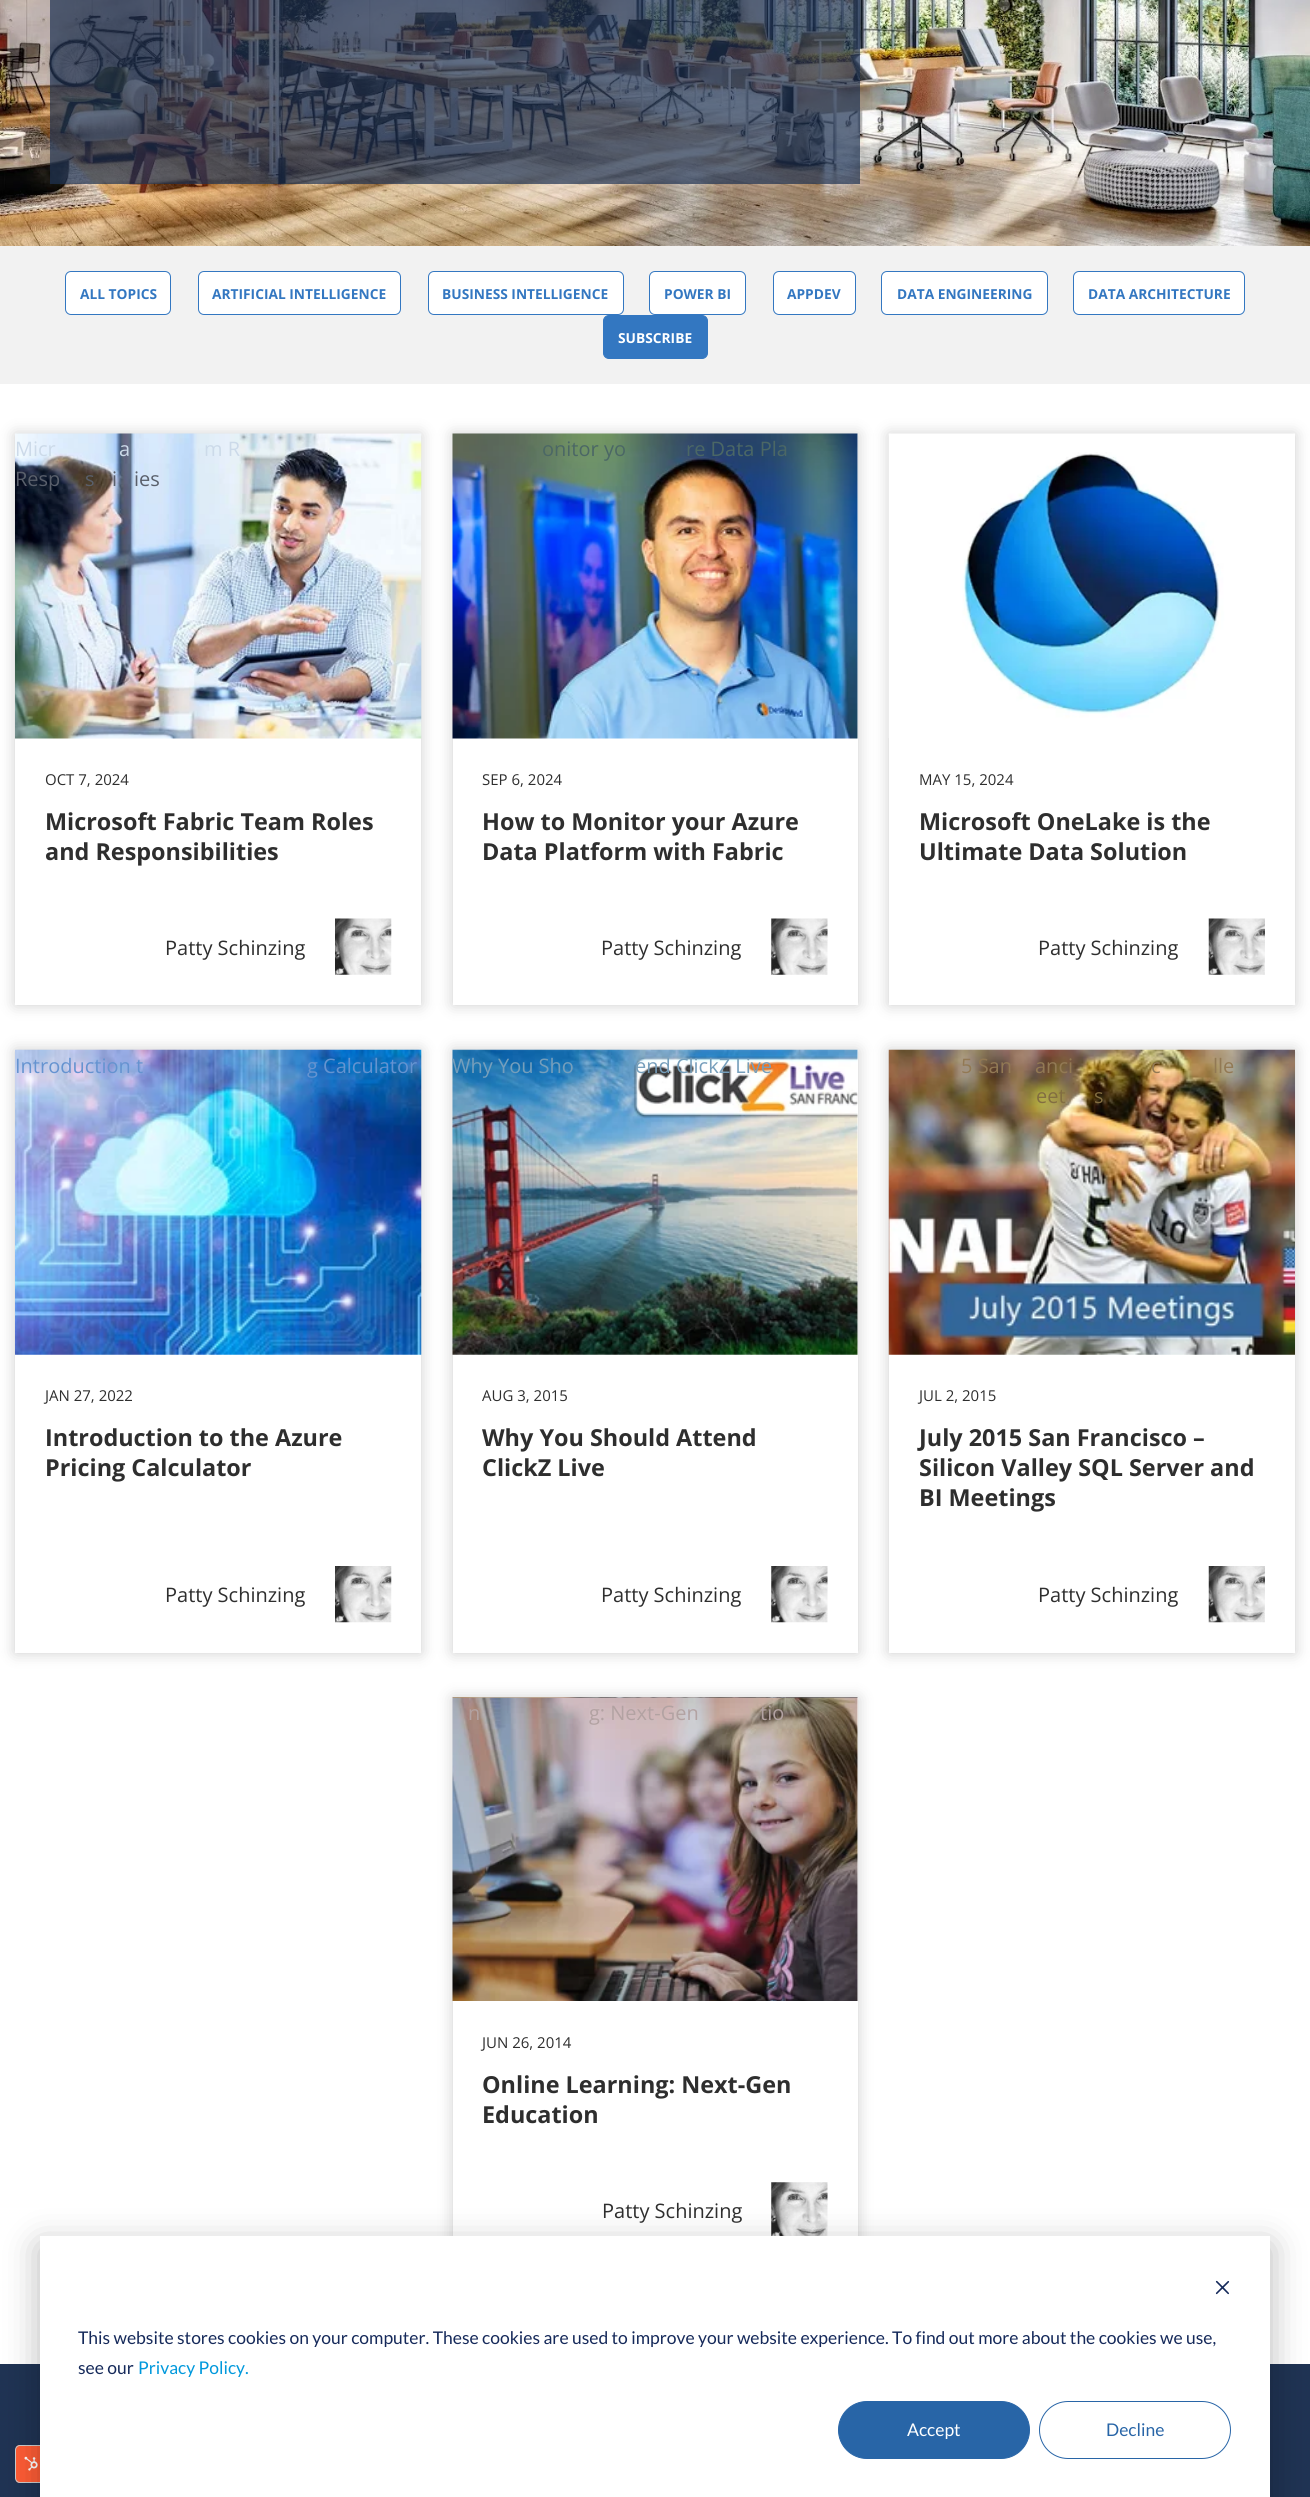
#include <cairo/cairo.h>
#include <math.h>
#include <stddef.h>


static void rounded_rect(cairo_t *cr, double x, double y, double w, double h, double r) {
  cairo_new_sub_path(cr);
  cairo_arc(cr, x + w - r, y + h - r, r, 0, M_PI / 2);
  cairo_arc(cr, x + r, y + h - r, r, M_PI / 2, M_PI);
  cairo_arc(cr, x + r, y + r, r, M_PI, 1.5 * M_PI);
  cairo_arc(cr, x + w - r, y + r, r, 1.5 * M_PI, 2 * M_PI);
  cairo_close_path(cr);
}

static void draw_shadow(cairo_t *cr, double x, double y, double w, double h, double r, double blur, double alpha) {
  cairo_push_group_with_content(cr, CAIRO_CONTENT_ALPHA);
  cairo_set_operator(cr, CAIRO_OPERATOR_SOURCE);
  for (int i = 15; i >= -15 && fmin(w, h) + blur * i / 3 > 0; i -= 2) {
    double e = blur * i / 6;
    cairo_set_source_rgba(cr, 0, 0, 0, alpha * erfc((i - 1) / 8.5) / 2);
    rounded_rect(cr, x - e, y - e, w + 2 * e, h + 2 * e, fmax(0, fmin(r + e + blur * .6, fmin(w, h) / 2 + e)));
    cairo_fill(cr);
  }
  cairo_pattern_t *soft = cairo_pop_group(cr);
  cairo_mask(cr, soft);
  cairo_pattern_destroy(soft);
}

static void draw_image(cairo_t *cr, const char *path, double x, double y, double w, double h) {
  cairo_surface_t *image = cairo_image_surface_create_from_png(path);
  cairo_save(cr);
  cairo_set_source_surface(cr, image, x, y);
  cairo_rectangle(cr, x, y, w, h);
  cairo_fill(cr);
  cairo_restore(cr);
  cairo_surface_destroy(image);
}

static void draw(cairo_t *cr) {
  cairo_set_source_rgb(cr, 1, 1, 1);
  cairo_paint(cr);
  draw_image(cr, "images/1.png", 0, 0, 1310, 246);
  cairo_set_source_rgba(cr, 31 / 255.0, 51 / 255.0, 83 / 255.0, 0.7);
  cairo_rectangle(cr, 50, 0, 810, 184);
  cairo_fill(cr);
  cairo_set_source_rgb(cr, 242 / 255.0, 242 / 255.0, 242 / 255.0);
  cairo_rectangle(cr, 0, 246, 1310, 138);
  cairo_fill(cr);
  cairo_set_source_rgb(cr, 1, 1, 1);
  rounded_rect(cr, 65.5, 271.5, 105, 43, 5.5);
  cairo_fill_preserve(cr);
  cairo_set_source_rgb(cr, 51 / 255.0, 119 / 255.0, 193 / 255.0);
  cairo_set_line_width(cr, 1);
  cairo_stroke(cr);
  cairo_set_source_rgb(cr, 1, 1, 1);
  rounded_rect(cr, 198.5, 271.5, 202, 43, 5.5);
  cairo_fill_preserve(cr);
  cairo_set_source_rgb(cr, 51 / 255.0, 119 / 255.0, 193 / 255.0);
  cairo_stroke(cr);
  cairo_set_source_rgb(cr, 1, 1, 1);
  rounded_rect(cr, 428.5, 271.5, 195, 43, 5.5);
  cairo_fill_preserve(cr);
  cairo_set_source_rgb(cr, 51 / 255.0, 119 / 255.0, 193 / 255.0);
  cairo_stroke(cr);
  cairo_set_source_rgb(cr, 1, 1, 1);
  rounded_rect(cr, 649.5, 271.5, 96, 43, 5.5);
  cairo_fill_preserve(cr);
  cairo_set_source_rgb(cr, 51 / 255.0, 119 / 255.0, 193 / 255.0);
  cairo_stroke(cr);
  cairo_set_source_rgb(cr, 1, 1, 1);
  rounded_rect(cr, 773.5, 271.5, 82, 43, 5.5);
  cairo_fill_preserve(cr);
  cairo_set_source_rgb(cr, 51 / 255.0, 119 / 255.0, 193 / 255.0);
  cairo_stroke(cr);
  cairo_set_source_rgb(cr, 1, 1, 1);
  rounded_rect(cr, 881.5, 271.5, 166, 43, 5.5);
  cairo_fill_preserve(cr);
  cairo_set_source_rgb(cr, 51 / 255.0, 119 / 255.0, 193 / 255.0);
  cairo_stroke(cr);
  cairo_set_source_rgb(cr, 1, 1, 1);
  rounded_rect(cr, 1073.5, 271.5, 171, 43, 5.5);
  cairo_fill_preserve(cr);
  cairo_set_source_rgb(cr, 51 / 255.0, 119 / 255.0, 193 / 255.0);
  cairo_stroke(cr);
  rounded_rect(cr, 603.5, 315.5, 104, 43, 5.5);
  cairo_fill_preserve(cr);
  cairo_stroke(cr);
  cairo_save(cr);
  cairo_set_fill_rule(cr, CAIRO_FILL_RULE_EVEN_ODD);
  cairo_new_path(cr);
  cairo_move_to(cr, 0, 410);
  cairo_line_to(cr, 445, 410);
  cairo_line_to(cr, 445, 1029);
  cairo_line_to(cr, 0, 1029);
  cairo_close_path(cr);
  cairo_move_to(cr, 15, 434);
  cairo_line_to(cr, 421, 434);
  cairo_line_to(cr, 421, 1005);
  cairo_line_to(cr, 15, 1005);
  cairo_close_path(cr);
  cairo_clip(cr);
  cairo_set_source_rgb(cr, 0, 0, 0);
  draw_shadow(cr, 15, 434, 406, 571, 0, 7.5, 0.2);
  cairo_restore(cr);
  draw_image(cr, "images/2.png", 15, 433, 407, 306);
  draw_image(cr, "images/3.png", 335, 918, 57, 57);
  cairo_set_source_rgb(cr, 0, 0, 0);
  draw_shadow(cr, 453, 434, 405, 571, 0, 7.5, 0.2);
  cairo_set_source_rgb(cr, 1, 1, 1);
  cairo_rectangle(cr, 453, 434, 405, 571);
  cairo_fill(cr);
  draw_image(cr, "images/4.png", 452, 433, 406, 306);
  draw_image(cr, "images/5.png", 771, 918, 57, 57);
  cairo_save(cr);
  cairo_set_fill_rule(cr, CAIRO_FILL_RULE_EVEN_ODD);
  cairo_new_path(cr);
  cairo_move_to(cr, 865, 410);
  cairo_line_to(cr, 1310, 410);
  cairo_line_to(cr, 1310, 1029);
  cairo_line_to(cr, 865, 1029);
  cairo_close_path(cr);
  cairo_move_to(cr, 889, 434);
  cairo_line_to(cr, 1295, 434);
  cairo_line_to(cr, 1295, 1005);
  cairo_line_to(cr, 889, 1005);
  cairo_close_path(cr);
  cairo_clip(cr);
  cairo_set_source_rgb(cr, 0, 0, 0);
  draw_shadow(cr, 889, 434, 406, 571, 0, 7.5, 0.2);
  cairo_restore(cr);
  draw_image(cr, "images/6.png", 888, 433, 407, 305);
  draw_image(cr, "images/7.png", 1208, 918, 57, 57);
  cairo_set_source_rgb(cr, 0, 0, 0);
  draw_shadow(cr, 15, 1050, 406, 603, 0, 7.5, 0.2);
  cairo_set_source_rgb(cr, 1, 1, 1);
  cairo_rectangle(cr, 15, 1354, 406, 299);
  cairo_fill(cr);
  draw_image(cr, "images/8.png", 15, 1049, 407, 306);
  draw_image(cr, "images/9.png", 335, 1566, 57, 57);
  cairo_set_source_rgb(cr, 0, 0, 0);
  draw_shadow(cr, 453, 1050, 405, 603, 0, 7.5, 0.2);
  cairo_set_source_rgb(cr, 1, 1, 1);
  cairo_rectangle(cr, 453, 1050, 405, 603);
  cairo_fill(cr);
  draw_image(cr, "images/10.png", 452, 1049, 406, 306);
  draw_image(cr, "images/11.png", 771, 1566, 57, 57);
  cairo_set_source_rgb(cr, 0, 0, 0);
  draw_shadow(cr, 889, 1050, 406, 603, 0, 7.5, 0.2);
  cairo_set_source_rgb(cr, 1, 1, 1);
  cairo_rectangle(cr, 889, 1354, 406, 299);
  cairo_fill(cr);
  draw_image(cr, "images/12.png", 888, 1049, 407, 306);
  draw_image(cr, "images/13.png", 1208, 1566, 57, 57);
  cairo_set_source_rgb(cr, 0, 0, 0);
  draw_shadow(cr, 453, 1698, 405, 571, 0, 7.5, 0.2);
  cairo_set_source_rgb(cr, 1, 1, 1);
  cairo_rectangle(cr, 453, 1698, 405, 538);
  cairo_fill(cr);
  draw_image(cr, "images/14.png", 452, 1697, 406, 304);
  draw_image(cr, "images/15.png", 771, 2182, 57, 54);
  cairo_set_source_rgb(cr, 31 / 255.0, 51 / 255.0, 83 / 255.0);
  cairo_rectangle(cr, 0, 2364, 1310, 133);
  cairo_fill(cr);
  cairo_save(cr);
  rounded_rect(cr, 15, 2445, 165, 38, 5);
  cairo_clip(cr);
  cairo_set_source_rgb(cr, 1, 92 / 255.0, 53 / 255.0);
  cairo_rectangle(cr, 16, 2445, 24, 38);
  cairo_fill(cr);
  cairo_restore(cr);
  rounded_rect(cr, 15.5, 2445.5, 164, 37, 4.5);
  cairo_set_source_rgb(cr, 204 / 255.0, 204 / 255.0, 204 / 255.0);
  cairo_stroke(cr);
  draw_image(cr, "images/17.png", 24, 2456, 14, 15);
  cairo_set_source_rgb(cr, 0, 0, 0);
  draw_shadow(cr, 40, 2246, 1230, 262, 0, 17.5, 0.28);
  cairo_set_source_rgb(cr, 1, 1, 1);
  cairo_rectangle(cr, 40, 2236, 1230, 261);
  cairo_fill(cr);
  draw_image(cr, "images/16.png", 1215, 2280, 15, 15);
  cairo_set_source_rgb(cr, 40 / 255.0, 101 / 255.0, 167 / 255.0);
  rounded_rect(cr, 838.5, 2401.5, 191, 57, 28.5);
  cairo_fill_preserve(cr);
  cairo_stroke(cr);
  rounded_rect(cr, 1039.5, 2401.5, 191, 57, 28.5);
  cairo_stroke(cr);
  cairo_select_font_face(cr, "Open Sans", CAIRO_FONT_SLANT_NORMAL, CAIRO_FONT_WEIGHT_BOLD);
  cairo_set_font_size(cr, 13.75);
  cairo_set_source_rgb(cr, 51 / 255.0, 119 / 255.0, 193 / 255.0);
  cairo_move_to(cr, 80, 299);
  cairo_show_text(cr, "ALL TOPICS");
  cairo_move_to(cr, 212, 299);
  cairo_show_text(cr, "ARTIFICIAL INTELLIGENCE");
  cairo_move_to(cr, 442, 299);
  cairo_show_text(cr, "BUSINESS INTELLIGENCE");
  cairo_move_to(cr, 664, 299);
  cairo_show_text(cr, "POWER BI");
  cairo_move_to(cr, 787, 299);
  cairo_show_text(cr, "APPDEV");
  cairo_move_to(cr, 897, 299);
  cairo_show_text(cr, "DATA ENGINEERING");
  cairo_move_to(cr, 1088, 299);
  cairo_show_text(cr, "DATA ARCHITECTURE");
  cairo_set_source_rgb(cr, 1, 1, 1);
  cairo_move_to(cr, 618, 343);
  cairo_show_text(cr, "SUBSCRIBE");
  cairo_select_font_face(cr, "Open Sans", CAIRO_FONT_SLANT_NORMAL, CAIRO_FONT_WEIGHT_NORMAL);
  cairo_set_font_size(cr, 20);
  cairo_set_source_rgb(cr, 204 / 255.0, 218 / 255.0, 233 / 255.0);
  cairo_move_to(cr, 15, 456);
  cairo_show_text(cr, "Micr");
  cairo_move_to(cr, 119, 456);
  cairo_show_text(cr, "a");
  cairo_move_to(cr, 204, 456);
  cairo_show_text(cr, "m R");
  cairo_set_source_rgb(cr, 89 / 255.0, 95 / 255.0, 107 / 255.0);
  cairo_move_to(cr, 15, 486);
  cairo_show_text(cr, "Resp");
  cairo_move_to(cr, 85, 486);
  cairo_show_text(cr, "s");
  cairo_move_to(cr, 112, 486);
  cairo_show_text(cr, "i");
  cairo_move_to(cr, 134, 486);
  cairo_show_text(cr, "ies");
  cairo_set_font_size(cr, 15);
  cairo_set_source_rgb(cr, 46 / 255.0, 46 / 255.0, 46 / 255.0);
  cairo_move_to(cr, 45, 785);
  cairo_show_text(cr, "OCT 7, 2024");
  cairo_select_font_face(cr, "Open Sans", CAIRO_FONT_SLANT_NORMAL, CAIRO_FONT_WEIGHT_BOLD);
  cairo_set_font_size(cr, 23.4);
  cairo_move_to(cr, 45, 830);
  cairo_show_text(cr, "Microsoft Fabric Team Roles");
  cairo_move_to(cr, 45, 860);
  cairo_show_text(cr, "and Responsibilities");
  cairo_select_font_face(cr, "Open Sans", CAIRO_FONT_SLANT_NORMAL, CAIRO_FONT_WEIGHT_NORMAL);
  cairo_set_font_size(cr, 20);
  cairo_move_to(cr, 165, 955);
  cairo_show_text(cr, "Patty Schinzing");
  cairo_set_source_rgb(cr, 75 / 255.0, 103 / 255.0, 101 / 255.0);
  cairo_move_to(cr, 542, 456);
  cairo_show_text(cr, "onitor yo");
  cairo_move_to(cr, 686, 456);
  cairo_show_text(cr, "re Data Pla");
  cairo_set_font_size(cr, 15);
  cairo_set_source_rgb(cr, 46 / 255.0, 46 / 255.0, 46 / 255.0);
  cairo_move_to(cr, 482, 785);
  cairo_show_text(cr, "SEP 6, 2024");
  cairo_select_font_face(cr, "Open Sans", CAIRO_FONT_SLANT_NORMAL, CAIRO_FONT_WEIGHT_BOLD);
  cairo_set_font_size(cr, 23.4);
  cairo_move_to(cr, 482, 830);
  cairo_show_text(cr, "How to Monitor your Azure");
  cairo_move_to(cr, 482, 860);
  cairo_show_text(cr, "Data Platform with Fabric");
  cairo_select_font_face(cr, "Open Sans", CAIRO_FONT_SLANT_NORMAL, CAIRO_FONT_WEIGHT_NORMAL);
  cairo_set_font_size(cr, 20);
  cairo_move_to(cr, 601, 955);
  cairo_show_text(cr, "Patty Schinzing");
  cairo_set_font_size(cr, 15);
  cairo_move_to(cr, 919, 785);
  cairo_show_text(cr, "MAY 15, 2024");
  cairo_select_font_face(cr, "Open Sans", CAIRO_FONT_SLANT_NORMAL, CAIRO_FONT_WEIGHT_BOLD);
  cairo_set_font_size(cr, 23.4);
  cairo_move_to(cr, 919, 830);
  cairo_show_text(cr, "Microsoft OneLake is the");
  cairo_move_to(cr, 919, 860);
  cairo_show_text(cr, "Ultimate Data Solution");
  cairo_select_font_face(cr, "Open Sans", CAIRO_FONT_SLANT_NORMAL, CAIRO_FONT_WEIGHT_NORMAL);
  cairo_set_font_size(cr, 20);
  cairo_move_to(cr, 1038, 955);
  cairo_show_text(cr, "Patty Schinzing");
  cairo_set_source_rgb(cr, 101 / 255.0, 147 / 255.0, 208 / 255.0);
  cairo_move_to(cr, 15, 1073);
  cairo_show_text(cr, "Introduction t");
  cairo_move_to(cr, 307, 1073);
  cairo_show_text(cr, "g Calculator");
  cairo_set_font_size(cr, 15);
  cairo_set_source_rgb(cr, 46 / 255.0, 46 / 255.0, 46 / 255.0);
  cairo_move_to(cr, 45, 1401);
  cairo_show_text(cr, "JAN 27, 2022");
  cairo_select_font_face(cr, "Open Sans", CAIRO_FONT_SLANT_NORMAL, CAIRO_FONT_WEIGHT_BOLD);
  cairo_set_font_size(cr, 23.4);
  cairo_move_to(cr, 45, 1446);
  cairo_show_text(cr, "Introduction to the Azure");
  cairo_move_to(cr, 45, 1476);
  cairo_show_text(cr, "Pricing Calculator");
  cairo_select_font_face(cr, "Open Sans", CAIRO_FONT_SLANT_NORMAL, CAIRO_FONT_WEIGHT_NORMAL);
  cairo_set_font_size(cr, 20);
  cairo_move_to(cr, 165, 1602);
  cairo_show_text(cr, "Patty Schinzing");
  cairo_set_source_rgb(cr, 117 / 255.0, 158 / 255.0, 187 / 255.0);
  cairo_move_to(cr, 452, 1073);
  cairo_show_text(cr, "Why You Sho");
  cairo_move_to(cr, 635, 1073);
  cairo_show_text(cr, "end ClickZ Live");
  cairo_set_font_size(cr, 15);
  cairo_set_source_rgb(cr, 46 / 255.0, 46 / 255.0, 46 / 255.0);
  cairo_move_to(cr, 482, 1401);
  cairo_show_text(cr, "AUG 3, 2015");
  cairo_select_font_face(cr, "Open Sans", CAIRO_FONT_SLANT_NORMAL, CAIRO_FONT_WEIGHT_BOLD);
  cairo_set_font_size(cr, 23.4);
  cairo_move_to(cr, 482, 1446);
  cairo_show_text(cr, "Why You Should Attend");
  cairo_move_to(cr, 482, 1476);
  cairo_show_text(cr, "ClickZ Live");
  cairo_select_font_face(cr, "Open Sans", CAIRO_FONT_SLANT_NORMAL, CAIRO_FONT_WEIGHT_NORMAL);
  cairo_set_font_size(cr, 20);
  cairo_move_to(cr, 601, 1602);
  cairo_show_text(cr, "Patty Schinzing");
  cairo_set_source_rgb(cr, 146 / 255.0, 121 / 255.0, 84 / 255.0);
  cairo_move_to(cr, 961, 1073);
  cairo_show_text(cr, "5 San");
  cairo_move_to(cr, 1035, 1073);
  cairo_show_text(cr, "anci");
  cairo_move_to(cr, 1151, 1073);
  cairo_show_text(cr, "c");
  cairo_move_to(cr, 1213, 1073);
  cairo_show_text(cr, "lle");
  cairo_set_source_rgb(cr, 130 / 255.0, 109 / 255.0, 65 / 255.0);
  cairo_move_to(cr, 1036, 1103);
  cairo_show_text(cr, "eet");
  cairo_move_to(cr, 1094, 1103);
  cairo_show_text(cr, "s");
  cairo_set_font_size(cr, 15);
  cairo_set_source_rgb(cr, 46 / 255.0, 46 / 255.0, 46 / 255.0);
  cairo_move_to(cr, 919, 1401);
  cairo_show_text(cr, "JUL 2, 2015");
  cairo_select_font_face(cr, "Open Sans", CAIRO_FONT_SLANT_NORMAL, CAIRO_FONT_WEIGHT_BOLD);
  cairo_set_font_size(cr, 23.4);
  cairo_move_to(cr, 919, 1446);
  cairo_show_text(cr, "July 2015 San Francisco –");
  cairo_move_to(cr, 919, 1476);
  cairo_show_text(cr, "Silicon Valley SQL Server and");
  cairo_move_to(cr, 919, 1506);
  cairo_show_text(cr, "BI Meetings");
  cairo_select_font_face(cr, "Open Sans", CAIRO_FONT_SLANT_NORMAL, CAIRO_FONT_WEIGHT_NORMAL);
  cairo_set_font_size(cr, 20);
  cairo_move_to(cr, 1038, 1602);
  cairo_show_text(cr, "Patty Schinzing");
  cairo_set_source_rgb(cr, 178 / 255.0, 162 / 255.0, 162 / 255.0);
  cairo_move_to(cr, 468, 1720);
  cairo_show_text(cr, "n");
  cairo_move_to(cr, 589, 1720);
  cairo_show_text(cr, "g: Next-Gen");
  cairo_move_to(cr, 760, 1720);
  cairo_show_text(cr, "tio");
  cairo_set_font_size(cr, 15);
  cairo_set_source_rgb(cr, 46 / 255.0, 46 / 255.0, 46 / 255.0);
  cairo_move_to(cr, 482, 2048);
  cairo_show_text(cr, "JUN 26, 2014");
  cairo_select_font_face(cr, "Open Sans", CAIRO_FONT_SLANT_NORMAL, CAIRO_FONT_WEIGHT_BOLD);
  cairo_set_font_size(cr, 23.4);
  cairo_move_to(cr, 482, 2093);
  cairo_show_text(cr, "Online Learning: Next-Gen");
  cairo_move_to(cr, 482, 2123);
  cairo_show_text(cr, "Education");
  cairo_select_font_face(cr, "Open Sans", CAIRO_FONT_SLANT_NORMAL, CAIRO_FONT_WEIGHT_NORMAL);
  cairo_set_font_size(cr, 20);
  cairo_move_to(cr, 602, 2218);
  cairo_show_text(cr, "Patty Schinzing");
  cairo_select_font_face(cr, "Lato", CAIRO_FONT_SLANT_NORMAL, CAIRO_FONT_WEIGHT_NORMAL);
  cairo_set_font_size(cr, 17.5);
  cairo_set_source_rgb(cr, 21 / 255.0, 41 / 255.0, 90 / 255.0);
  cairo_move_to(cr, 78, 2344);
  cairo_show_text(cr, "This website stores cookies on your computer. These cookies are used to improve your website experience. To find out more about the cookies we use,");
  cairo_move_to(cr, 78, 2374);
  cairo_show_text(cr, "see our");
  cairo_set_source_rgb(cr, 0, 152 / 255.0, 220 / 255.0);
  cairo_move_to(cr, 138, 2374);
  cairo_show_text(cr, "Privacy Policy.");
  cairo_set_source_rgb(cr, 1, 1, 1);
  cairo_move_to(cr, 907, 2436);
  cairo_show_text(cr, "Accept");
  cairo_set_source_rgb(cr, 40 / 255.0, 101 / 255.0, 167 / 255.0);
  cairo_move_to(cr, 1106, 2436);
  cairo_show_text(cr, "Decline");
}

int main(void) {
  cairo_surface_t *surface = cairo_image_surface_create(CAIRO_FORMAT_RGB24, 1310, 2497);
  cairo_t *cr = cairo_create(surface);
  cairo_font_options_t *options = cairo_font_options_create();
  cairo_font_options_set_hint_metrics(options, CAIRO_HINT_METRICS_OFF);
  cairo_font_options_set_hint_style(options, CAIRO_HINT_STYLE_NONE);
  cairo_set_font_options(cr, options);
  cairo_set_miter_limit(cr, 4);
  draw(cr);
  cairo_surface_write_to_png(surface, "out.png");
  cairo_font_options_destroy(options);
  cairo_destroy(cr);
  cairo_surface_destroy(surface);
  return 0;
}
